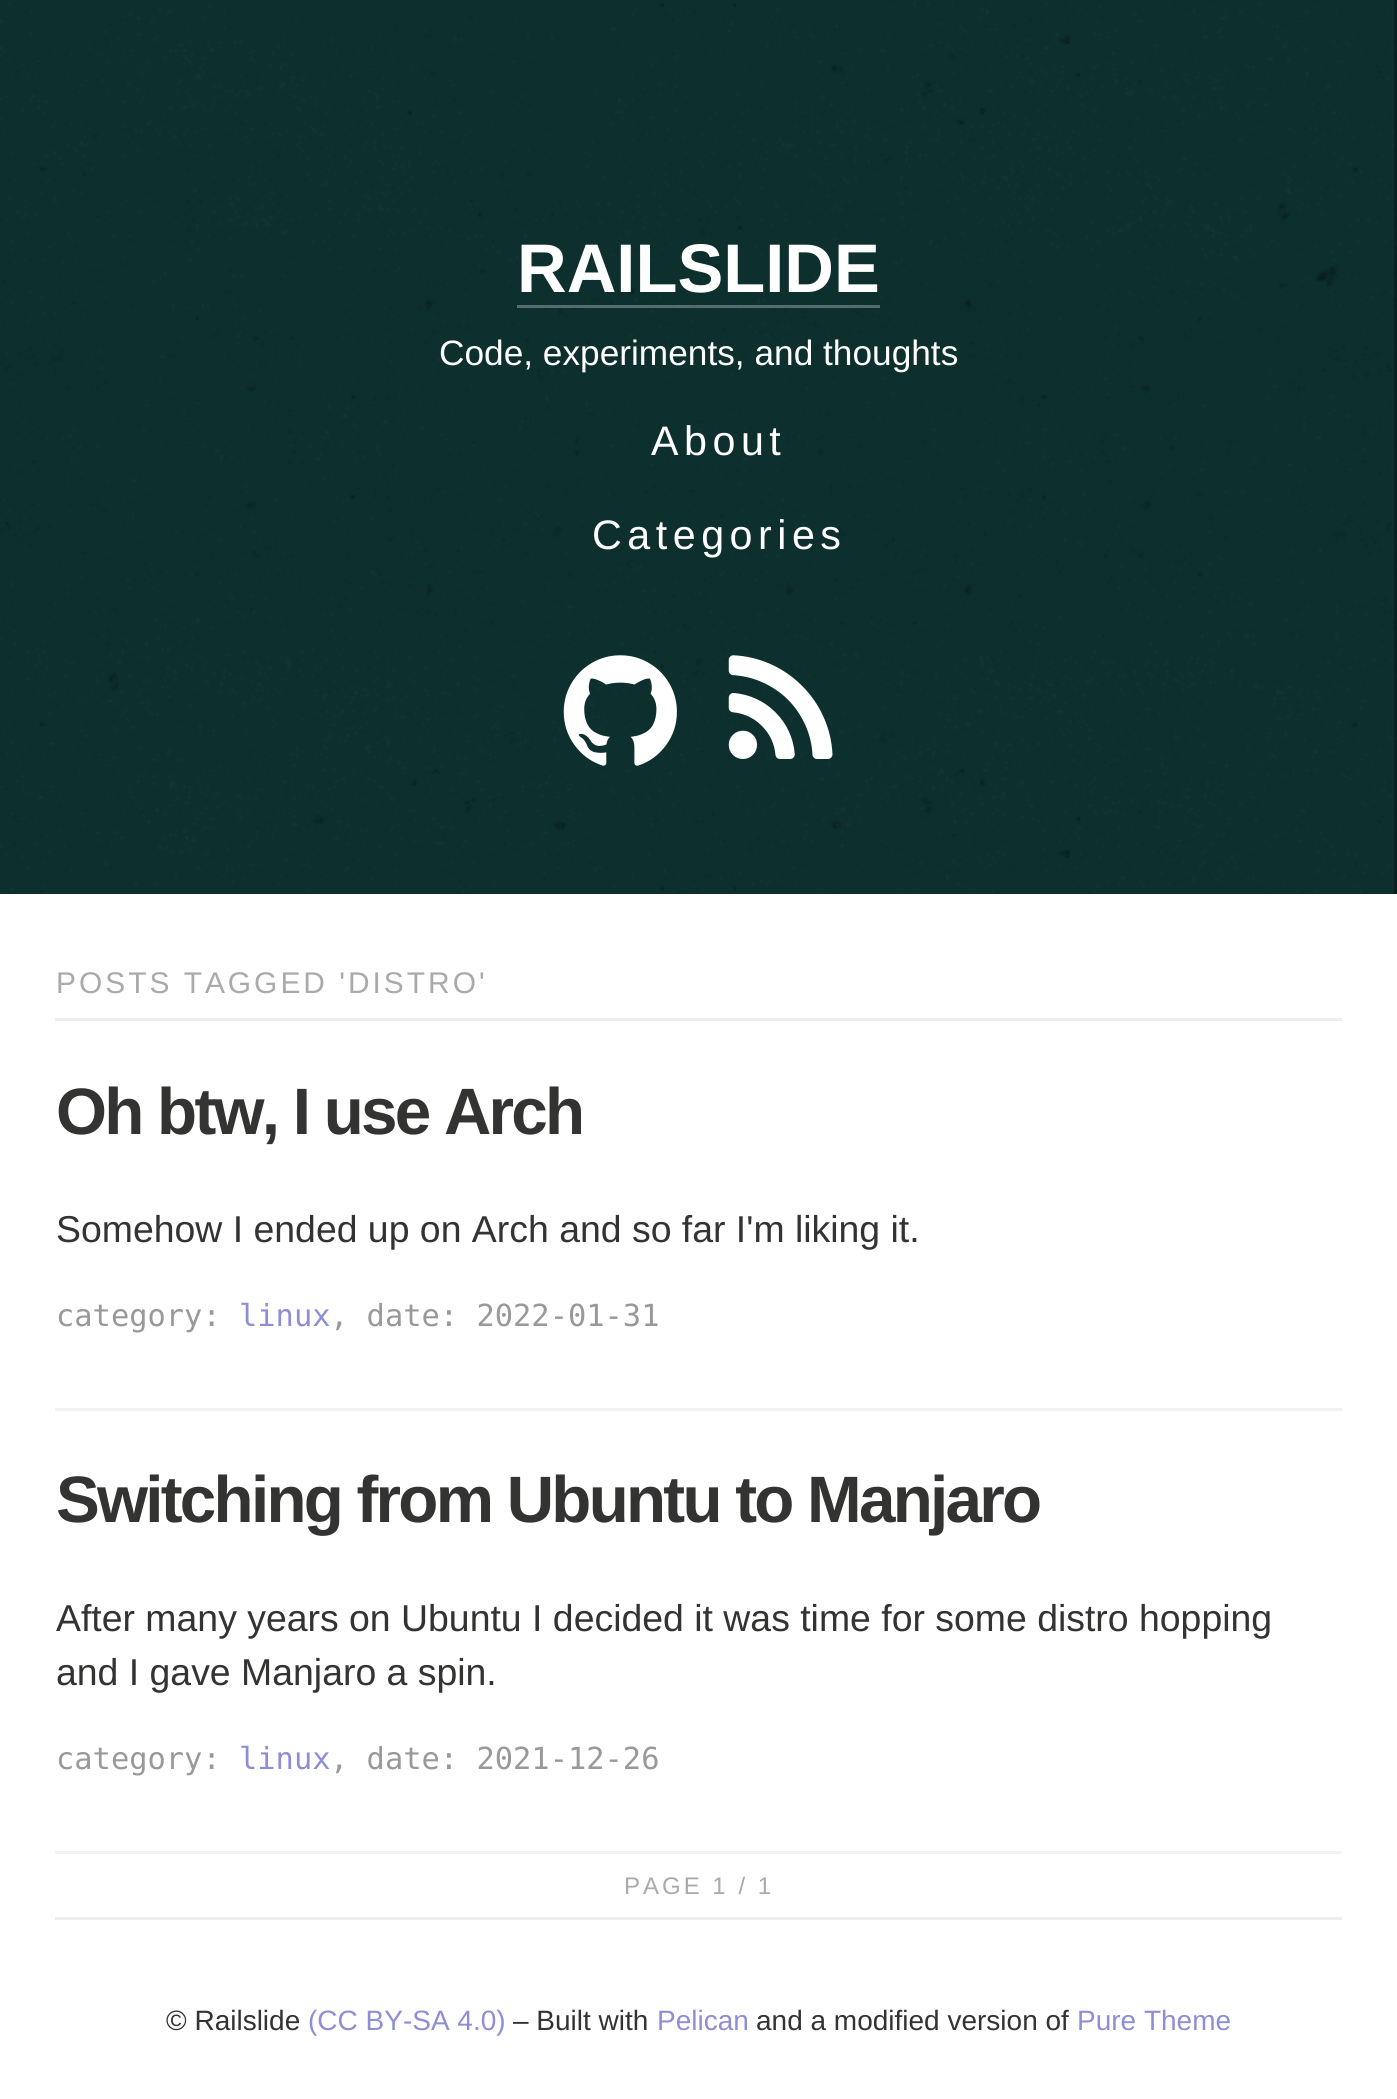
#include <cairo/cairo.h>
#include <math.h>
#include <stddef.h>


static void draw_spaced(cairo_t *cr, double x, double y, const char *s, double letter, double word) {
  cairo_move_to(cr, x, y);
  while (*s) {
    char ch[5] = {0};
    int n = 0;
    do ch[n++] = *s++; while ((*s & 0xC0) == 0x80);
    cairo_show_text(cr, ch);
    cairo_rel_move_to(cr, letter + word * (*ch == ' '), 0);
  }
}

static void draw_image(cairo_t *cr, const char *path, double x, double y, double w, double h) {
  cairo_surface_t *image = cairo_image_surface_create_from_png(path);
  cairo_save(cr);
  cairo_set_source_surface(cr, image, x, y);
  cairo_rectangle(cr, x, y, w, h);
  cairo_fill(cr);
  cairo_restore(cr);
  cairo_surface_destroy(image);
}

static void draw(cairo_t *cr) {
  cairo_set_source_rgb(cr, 1, 1, 1);
  cairo_paint(cr);
  cairo_set_source_rgb(cr, 13 / 255.0, 48 / 255.0, 46 / 255.0);
  cairo_rectangle(cr, 0, 0, 1397, 894);
  cairo_fill(cr);
  draw_image(cr, "images/1.png", 0, 3, 1397, 890);
  cairo_set_source_rgba(cr, 0, 0, 0, 0.3);
  cairo_rectangle(cr, 1394, 0, 3, 894);
  cairo_fill(cr);
  cairo_set_source_rgba(cr, 1, 1, 1, 0.3);
  cairo_rectangle(cr, 517, 305, 363, 3);
  cairo_fill(cr);
  draw_image(cr, "images/2.png", 563, 655, 114, 111);
  draw_image(cr, "images/3.png", 728, 655, 105, 104);
  cairo_set_source_rgb(cr, 238 / 255.0, 238 / 255.0, 238 / 255.0);
  cairo_rectangle(cr, 55, 1018, 1287, 3);
  cairo_fill(cr);
  cairo_set_source_rgb(cr, 242 / 255.0, 242 / 255.0, 240 / 255.0);
  cairo_rectangle(cr, 55, 1408, 1287, 3);
  cairo_fill(cr);
  cairo_rectangle(cr, 55, 1851, 1287, 3);
  cairo_fill(cr);
  cairo_set_source_rgb(cr, 238 / 255.0, 238 / 255.0, 238 / 255.0);
  cairo_rectangle(cr, 55, 1917, 1287, 3);
  cairo_fill(cr);
  cairo_select_font_face(cr, "Liberation Sans", CAIRO_FONT_SLANT_NORMAL, CAIRO_FONT_WEIGHT_BOLD);
  cairo_set_font_size(cr, 68.75);
  cairo_set_source_rgb(cr, 1, 1, 1);
  cairo_move_to(cr, 517, 292);
  cairo_show_text(cr, "RAILSLIDE");
  cairo_select_font_face(cr, "Liberation Sans", CAIRO_FONT_SLANT_NORMAL, CAIRO_FONT_WEIGHT_NORMAL);
  cairo_set_font_size(cr, 35.25);
  cairo_move_to(cr, 439, 365);
  cairo_show_text(cr, "Code, experiments, and thoughts");
  cairo_set_font_size(cr, 41.25);
  draw_spaced(cr, 651, 455, "About", 5.5, 0);
  draw_spaced(cr, 592, 549, "Categories", 5.5, 0);
  cairo_set_font_size(cr, 29.9);
  cairo_set_source_rgb(cr, 170 / 255.0, 170 / 255.0, 170 / 255.0);
  draw_spaced(cr, 56, 993, "POSTS TAGGED 'DISTRO'", 3, 0);
  cairo_select_font_face(cr, "Liberation Sans", CAIRO_FONT_SLANT_NORMAL, CAIRO_FONT_WEIGHT_BOLD);
  cairo_set_font_size(cr, 65.6);
  cairo_set_source_rgb(cr, 51 / 255.0, 51 / 255.0, 50 / 255.0);
  draw_spaced(cr, 56, 1134, "Oh btw, I use Arch", -2.75, 0);
  cairo_select_font_face(cr, "Liberation Sans", CAIRO_FONT_SLANT_NORMAL, CAIRO_FONT_WEIGHT_NORMAL);
  cairo_set_font_size(cr, 37.4);
  cairo_move_to(cr, 56, 1242);
  cairo_show_text(cr, "Somehow I ended up on Arch and so far I'm liking it.");
  cairo_select_font_face(cr, "DejaVu Sans Mono", CAIRO_FONT_SLANT_NORMAL, CAIRO_FONT_WEIGHT_NORMAL);
  cairo_set_font_size(cr, 30.4);
  cairo_set_source_rgb(cr, 153 / 255.0, 153 / 255.0, 153 / 255.0);
  cairo_move_to(cr, 56, 1326);
  cairo_show_text(cr, "category:");
  cairo_set_source_rgb(cr, 142 / 255.0, 142 / 255.0, 214 / 255.0);
  cairo_move_to(cr, 239, 1326);
  cairo_show_text(cr, "linux");
  cairo_set_source_rgb(cr, 153 / 255.0, 153 / 255.0, 153 / 255.0);
  cairo_move_to(cr, 330, 1326);
  cairo_show_text(cr, ", date: 2022-01-31");
  cairo_select_font_face(cr, "Liberation Sans", CAIRO_FONT_SLANT_NORMAL, CAIRO_FONT_WEIGHT_BOLD);
  cairo_set_font_size(cr, 65.6);
  cairo_set_source_rgb(cr, 51 / 255.0, 51 / 255.0, 50 / 255.0);
  draw_spaced(cr, 56, 1522, "Switching from Ubuntu to Manjaro", -2.75, 0);
  cairo_select_font_face(cr, "Liberation Sans", CAIRO_FONT_SLANT_NORMAL, CAIRO_FONT_WEIGHT_NORMAL);
  cairo_set_font_size(cr, 37.4);
  cairo_move_to(cr, 56, 1631);
  cairo_show_text(cr, "After many years on Ubuntu I decided it was time for some distro hopping");
  cairo_move_to(cr, 56, 1685);
  cairo_show_text(cr, "and I gave Manjaro a spin.");
  cairo_select_font_face(cr, "DejaVu Sans Mono", CAIRO_FONT_SLANT_NORMAL, CAIRO_FONT_WEIGHT_NORMAL);
  cairo_set_font_size(cr, 30.4);
  cairo_set_source_rgb(cr, 153 / 255.0, 153 / 255.0, 153 / 255.0);
  cairo_move_to(cr, 56, 1769);
  cairo_show_text(cr, "category:");
  cairo_set_source_rgb(cr, 142 / 255.0, 142 / 255.0, 214 / 255.0);
  cairo_move_to(cr, 239, 1769);
  cairo_show_text(cr, "linux");
  cairo_set_source_rgb(cr, 153 / 255.0, 153 / 255.0, 153 / 255.0);
  cairo_move_to(cr, 330, 1769);
  cairo_show_text(cr, ", date: 2021-12-26");
  cairo_select_font_face(cr, "Liberation Sans", CAIRO_FONT_SLANT_NORMAL, CAIRO_FONT_WEIGHT_NORMAL);
  cairo_set_font_size(cr, 24);
  cairo_set_source_rgb(cr, 170 / 255.0, 170 / 255.0, 170 / 255.0);
  draw_spaced(cr, 624, 1894, "PAGE 1 / 1", 3, 0);
  cairo_set_font_size(cr, 28);
  cairo_set_source_rgb(cr, 51 / 255.0, 51 / 255.0, 50 / 255.0);
  cairo_move_to(cr, 166, 2030);
  cairo_show_text(cr, "© Railslide");
  cairo_set_source_rgb(cr, 142 / 255.0, 142 / 255.0, 214 / 255.0);
  cairo_move_to(cr, 308, 2030);
  cairo_show_text(cr, "(CC BY-SA 4.0)");
  cairo_set_source_rgb(cr, 51 / 255.0, 51 / 255.0, 50 / 255.0);
  cairo_move_to(cr, 513, 2030);
  cairo_show_text(cr, "– Built with");
  cairo_set_source_rgb(cr, 142 / 255.0, 142 / 255.0, 214 / 255.0);
  cairo_move_to(cr, 657, 2030);
  cairo_show_text(cr, "Pelican");
  cairo_set_source_rgb(cr, 51 / 255.0, 51 / 255.0, 50 / 255.0);
  cairo_move_to(cr, 756, 2030);
  cairo_show_text(cr, "and a modified version of");
  cairo_set_source_rgb(cr, 142 / 255.0, 142 / 255.0, 214 / 255.0);
  cairo_move_to(cr, 1077, 2030);
  cairo_show_text(cr, "Pure Theme");
}

int main(void) {
  cairo_surface_t *surface = cairo_image_surface_create(CAIRO_FORMAT_RGB24, 1397, 2099);
  cairo_t *cr = cairo_create(surface);
  cairo_font_options_t *options = cairo_font_options_create();
  cairo_font_options_set_hint_metrics(options, CAIRO_HINT_METRICS_OFF);
  cairo_font_options_set_hint_style(options, CAIRO_HINT_STYLE_NONE);
  cairo_set_font_options(cr, options);
  cairo_set_miter_limit(cr, 4);
  draw(cr);
  cairo_surface_write_to_png(surface, "out.png");
  cairo_font_options_destroy(options);
  cairo_destroy(cr);
  cairo_surface_destroy(surface);
  return 0;
}
